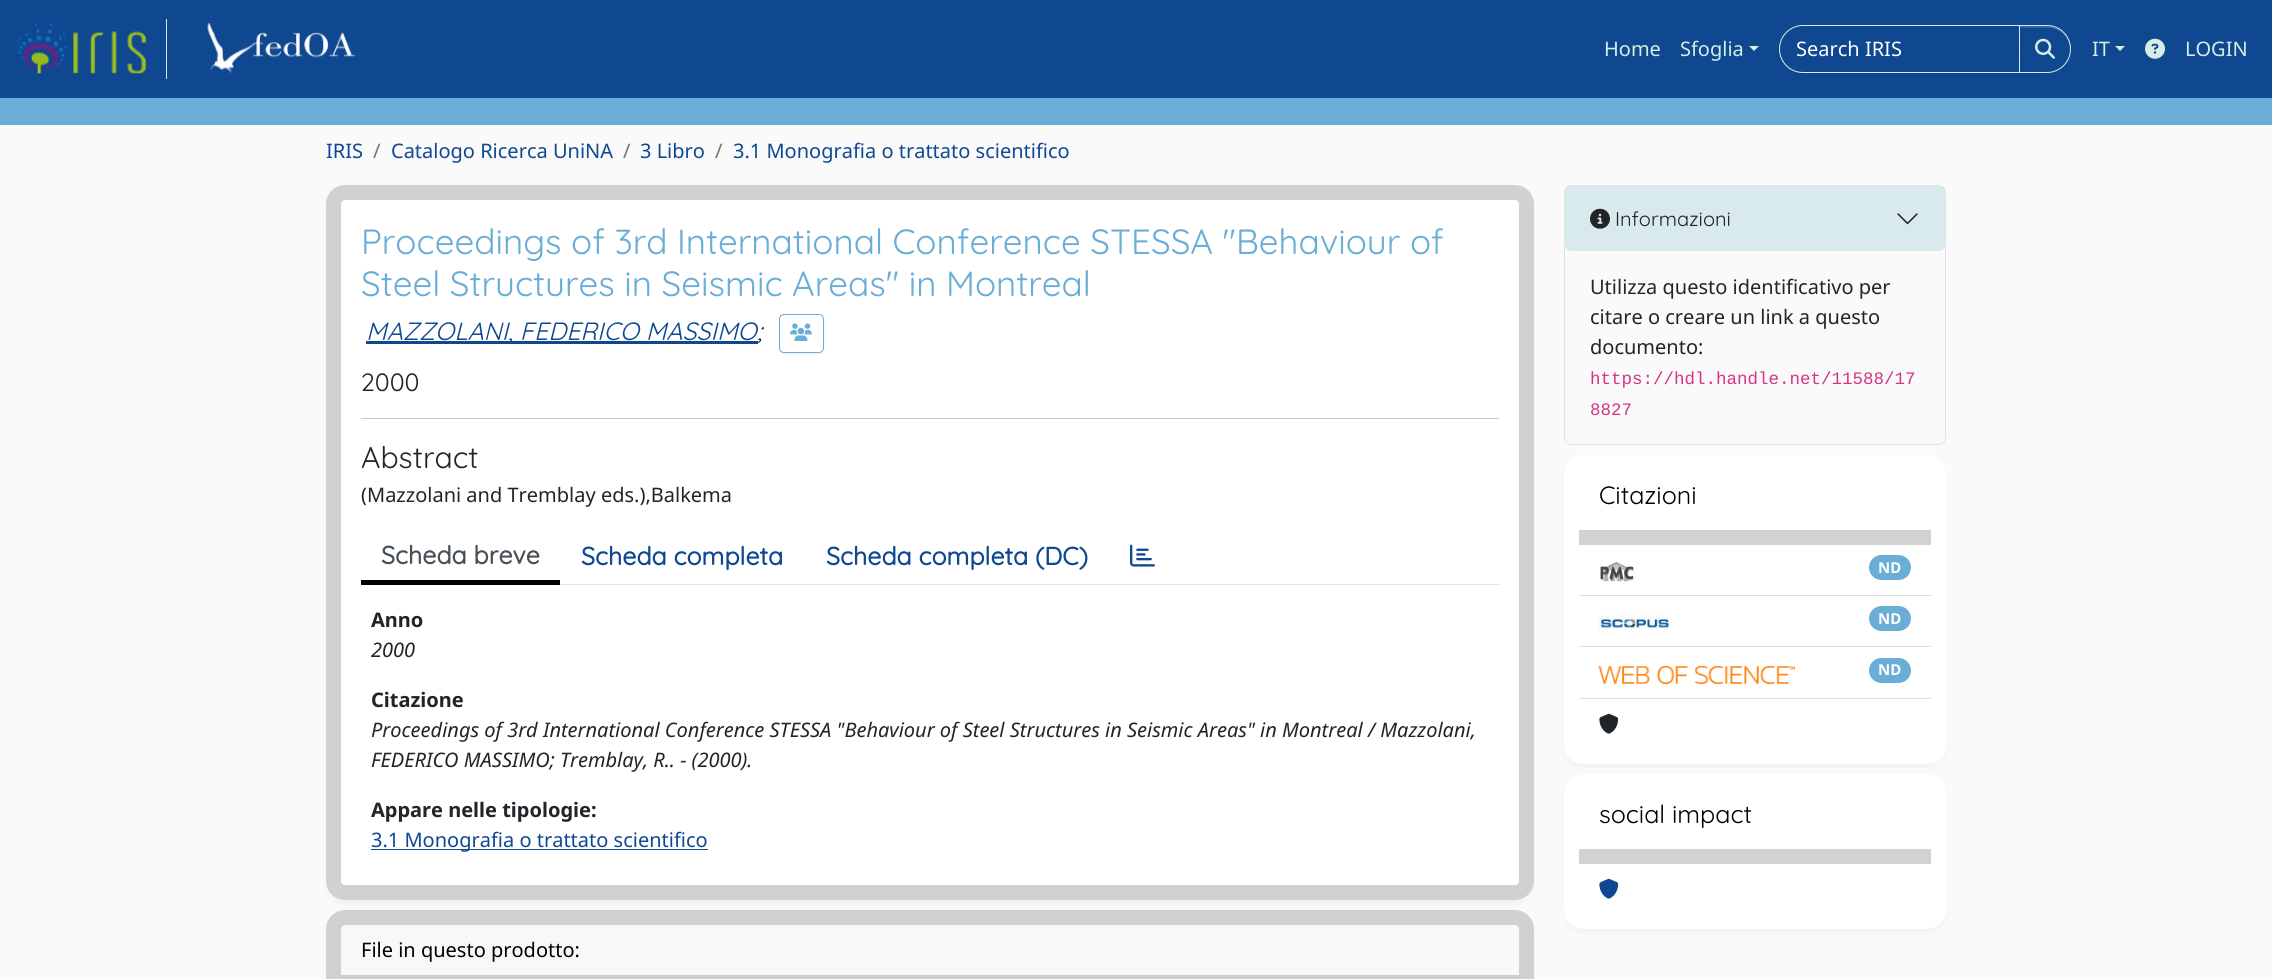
#include <cairo/cairo.h>
#include <math.h>
#include <stddef.h>


static void rounded_rect(cairo_t *cr, double x, double y, double w, double h, double r) {
  cairo_new_sub_path(cr);
  cairo_arc(cr, x + w - r, y + h - r, r, 0, M_PI / 2);
  cairo_arc(cr, x + r, y + h - r, r, M_PI / 2, M_PI);
  cairo_arc(cr, x + r, y + r, r, M_PI, 1.5 * M_PI);
  cairo_arc(cr, x + w - r, y + r, r, 1.5 * M_PI, 2 * M_PI);
  cairo_close_path(cr);
}

static void draw_shadow(cairo_t *cr, double x, double y, double w, double h, double r, double blur, double alpha) {
  cairo_push_group_with_content(cr, CAIRO_CONTENT_ALPHA);
  cairo_set_operator(cr, CAIRO_OPERATOR_SOURCE);
  for (int i = 15; i >= -15 && fmin(w, h) + blur * i / 3 > 0; i -= 2) {
    double e = blur * i / 6;
    cairo_set_source_rgba(cr, 0, 0, 0, alpha * erfc((i - 1) / 8.5) / 2);
    rounded_rect(cr, x - e, y - e, w + 2 * e, h + 2 * e, fmax(0, fmin(r + e + blur * .6, fmin(w, h) / 2 + e)));
    cairo_fill(cr);
  }
  cairo_pattern_t *soft = cairo_pop_group(cr);
  cairo_mask(cr, soft);
  cairo_pattern_destroy(soft);
}

static void draw_image(cairo_t *cr, const char *path, double x, double y, double w, double h) {
  cairo_surface_t *image = cairo_image_surface_create_from_png(path);
  cairo_save(cr);
  cairo_set_source_surface(cr, image, x, y);
  cairo_rectangle(cr, x, y, w, h);
  cairo_fill(cr);
  cairo_restore(cr);
  cairo_surface_destroy(image);
}

static void draw(cairo_t *cr) {
  cairo_set_source_rgb(cr, 251 / 255.0, 250 / 255.0, 250 / 255.0);
  cairo_paint(cr);
  cairo_set_source_rgb(cr, 15 / 255.0, 71 / 255.0, 145 / 255.0);
  cairo_rectangle(cr, 0, 0, 2272, 98);
  cairo_fill(cr);
  cairo_set_source_rgb(cr, 213 / 255.0, 238 / 255.0, 228 / 255.0);
  cairo_rectangle(cr, 166, 19, 1, 60);
  cairo_fill(cr);
  draw_image(cr, "images/1.png", 16, 23, 131, 51);
  draw_image(cr, "images/2.png", 207, 23, 148, 50);
  cairo_new_path(cr);
  cairo_move_to(cr, 1749, 46);
  cairo_line_to(cr, 1759, 46);
  cairo_line_to(cr, 1754, 51);
  cairo_close_path(cr);
  cairo_fill(cr);
  cairo_new_path(cr);
  cairo_move_to(cr, 1803, 25.5);
  cairo_line_to(cr, 2019.5, 25.5);
  cairo_line_to(cr, 2019.5, 72.5);
  cairo_line_to(cr, 1803, 72.5);
  cairo_curve_to(cr, 1790, 72.5, 1779.5, 62, 1779.5, 49);
  cairo_curve_to(cr, 1779.5, 36, 1790, 25.5, 1803, 25.5);
  cairo_close_path(cr);
  cairo_set_line_width(cr, 1);
  cairo_stroke(cr);
  cairo_set_source_rgb(cr, 0, 0, 0);
  draw_shadow(cr, 2019, 26, 52, 48, 24, 0.5, 0.07);
  cairo_set_source_rgb(cr, 15 / 255.0, 71 / 255.0, 145 / 255.0);
  cairo_new_path(cr);
  cairo_move_to(cr, 2019, 25);
  cairo_line_to(cr, 2047, 25);
  cairo_curve_to(cr, 2060.5, 25, 2071, 35.5, 2071, 49);
  cairo_curve_to(cr, 2071, 62.5, 2060.5, 73, 2047, 73);
  cairo_line_to(cr, 2019, 73);
  cairo_close_path(cr);
  cairo_fill(cr);
  cairo_set_source_rgb(cr, 51 / 255.0, 99 / 255.0, 162 / 255.0);
  cairo_new_path(cr);
  cairo_move_to(cr, 2020, 28);
  cairo_line_to(cr, 2048, 28);
  cairo_curve_to(cr, 2060, 28, 2070, 38, 2070, 49);
  cairo_line_to(cr, 2070, 48);
  cairo_curve_to(cr, 2070, 36, 2060, 26, 2048, 26);
  cairo_line_to(cr, 2020, 26);
  cairo_close_path(cr);
  cairo_fill(cr);
  cairo_new_path(cr);
  cairo_move_to(cr, 2019.5, 25.5);
  cairo_line_to(cr, 2047, 25.5);
  cairo_curve_to(cr, 2060, 25.5, 2070.5, 36, 2070.5, 49);
  cairo_curve_to(cr, 2070.5, 62, 2060, 72.5, 2047, 72.5);
  cairo_line_to(cr, 2019.5, 72.5);
  cairo_close_path(cr);
  cairo_set_source_rgb(cr, 213 / 255.0, 238 / 255.0, 228 / 255.0);
  cairo_stroke(cr);
  draw_image(cr, "images/3.png", 2035, 38, 20, 21);
  cairo_new_path(cr);
  cairo_move_to(cr, 2115, 46);
  cairo_line_to(cr, 2125, 46);
  cairo_line_to(cr, 2120, 51);
  cairo_close_path(cr);
  cairo_fill(cr);
  draw_image(cr, "images/4.png", 2145, 38, 20, 21);
  cairo_set_source_rgb(cr, 106 / 255.0, 173 / 255.0, 215 / 255.0);
  cairo_rectangle(cr, 0, 98, 2272, 27);
  cairo_fill(cr);
  cairo_set_source_rgb(cr, 238 / 255.0, 238 / 255.0, 238 / 255.0);
  draw_shadow(cr, 329, 193, 1202, 710, 16, 4, 1);
  cairo_set_source_rgb(cr, 1, 1, 1);
  rounded_rect(cr, 326, 185, 1208, 715, 19);
  cairo_fill(cr);
  rounded_rect(cr, 333.5, 192.5, 1193, 700, 11.5);
  cairo_set_source_rgba(cr, 0, 0, 0, 0.18);
  cairo_set_line_width(cr, 15);
  cairo_stroke(cr);
  cairo_set_source_rgb(cr, 15 / 255.0, 71 / 255.0, 145 / 255.0);
  cairo_rectangle(cr, 366, 341, 392, 3);
  cairo_fill(cr);
  cairo_save(cr);
  cairo_set_fill_rule(cr, CAIRO_FILL_RULE_EVEN_ODD);
  cairo_new_path(cr);
  cairo_move_to(cr, 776, 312);
  cairo_line_to(cr, 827, 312);
  cairo_line_to(cr, 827, 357);
  cairo_line_to(cr, 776, 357);
  cairo_close_path(cr);
  cairo_move_to(cr, 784, 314);
  cairo_line_to(cr, 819, 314);
  cairo_curve_to(cr, 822, 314, 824, 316, 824, 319);
  cairo_line_to(cr, 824, 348);
  cairo_curve_to(cr, 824, 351, 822, 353, 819, 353);
  cairo_line_to(cr, 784, 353);
  cairo_curve_to(cr, 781, 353, 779, 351, 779, 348);
  cairo_line_to(cr, 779, 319);
  cairo_curve_to(cr, 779, 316, 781, 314, 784, 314);
  cairo_close_path(cr);
  cairo_clip(cr);
  cairo_set_source_rgb(cr, 0, 0, 0);
  draw_shadow(cr, 779, 315, 45, 39, 5, 0.5, 0.07);
  cairo_restore(cr);
  rounded_rect(cr, 779.5, 314.5, 44, 38, 4.5);
  cairo_set_source_rgb(cr, 106 / 255.0, 173 / 255.0, 215 / 255.0);
  cairo_set_line_width(cr, 1);
  cairo_stroke(cr);
  draw_image(cr, "images/5.png", 790, 323, 22, 18);
  cairo_set_source_rgb(cr, 200 / 255.0, 201 / 255.0, 202 / 255.0);
  cairo_rectangle(cr, 361, 418, 1138, 1);
  cairo_fill(cr);
  cairo_set_source_rgb(cr, 222 / 255.0, 226 / 255.0, 230 / 255.0);
  cairo_rectangle(cr, 560, 584, 939, 1);
  cairo_fill(cr);
  cairo_set_source_rgb(cr, 0, 0, 0);
  cairo_rectangle(cr, 361, 580, 199, 5);
  cairo_fill(cr);
  draw_image(cr, "images/6.png", 1130, 544, 25, 23);
  cairo_set_source_rgb(cr, 15 / 255.0, 71 / 255.0, 145 / 255.0);
  cairo_rectangle(cr, 371, 849, 337, 1);
  cairo_fill(cr);
  cairo_set_source_rgb(cr, 238 / 255.0, 238 / 255.0, 238 / 255.0);
  draw_shadow(cr, 329, 918, 1202, 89, 16, 4, 1);
  cairo_set_source_rgb(cr, 1, 1, 1);
  rounded_rect(cr, 326, 910, 1208, 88, 19);
  cairo_fill(cr);
  rounded_rect(cr, 333.5, 917.5, 1193, 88, 11.5);
  cairo_set_source_rgba(cr, 0, 0, 0, 0.18);
  cairo_set_line_width(cr, 15);
  cairo_stroke(cr);
  cairo_set_source_rgba(cr, 0, 0, 0, 0.03);
  cairo_rectangle(cr, 341, 925, 1178, 50);
  cairo_fill(cr);
  cairo_set_source_rgb(cr, 204 / 255.0, 204 / 255.0, 204 / 255.0);
  cairo_rectangle(cr, 341, 975, 1178, 4);
  cairo_fill(cr);
  rounded_rect(cr, 1564.5, 185.5, 381, 259, 7.5);
  cairo_set_source_rgb(cr, 222 / 255.0, 226 / 255.0, 230 / 255.0);
  cairo_set_line_width(cr, 1);
  cairo_stroke(cr);
  cairo_set_source_rgba(cr, 119 / 255.0, 190 / 255.0, 202 / 255.0, 0.25);
  rounded_rect(cr, 1565, 186, 380, 65, 6);
  cairo_fill(cr);
  draw_image(cr, "images/7.png", 1590, 208, 20, 21);
  draw_image(cr, "images/8.png", 1897, 213, 21, 12);
  cairo_set_source_rgb(cr, 238 / 255.0, 238 / 255.0, 238 / 255.0);
  draw_shadow(cr, 1566, 463, 378, 303, 16, 4, 1);
  cairo_set_source_rgb(cr, 1, 1, 1);
  rounded_rect(cr, 1571.5, 462.5, 367, 294, 11.5);
  cairo_fill_preserve(cr);
  cairo_set_line_width(cr, 15);
  cairo_stroke(cr);
  cairo_set_source_rgb(cr, 210 / 255.0, 210 / 255.0, 210 / 255.0);
  cairo_rectangle(cr, 1579, 530, 352, 15);
  cairo_fill(cr);
  cairo_set_source_rgb(cr, 223 / 255.0, 223 / 255.0, 223 / 255.0);
  cairo_rectangle(cr, 1579, 595, 352, 1);
  cairo_fill(cr);
  draw_image(cr, "images/9.png", 1600, 562, 34, 20);
  cairo_set_source_rgb(cr, 106 / 255.0, 173 / 255.0, 215 / 255.0);
  rounded_rect(cr, 1869, 555, 42, 25, 12.5);
  cairo_fill(cr);
  cairo_set_source_rgb(cr, 223 / 255.0, 223 / 255.0, 223 / 255.0);
  cairo_rectangle(cr, 1579, 646, 352, 1);
  cairo_fill(cr);
  draw_image(cr, "images/10.png", 1598, 613, 71, 16);
  cairo_set_source_rgb(cr, 106 / 255.0, 173 / 255.0, 215 / 255.0);
  rounded_rect(cr, 1869, 606, 42, 25, 12.5);
  cairo_fill(cr);
  cairo_set_source_rgb(cr, 223 / 255.0, 223 / 255.0, 223 / 255.0);
  cairo_rectangle(cr, 1579, 698, 352, 1);
  cairo_fill(cr);
  draw_image(cr, "images/11.png", 1598, 666, 197, 18);
  cairo_set_source_rgb(cr, 106 / 255.0, 173 / 255.0, 215 / 255.0);
  rounded_rect(cr, 1869, 658, 42, 25, 12.5);
  cairo_fill(cr);
  draw_image(cr, "images/12.png", 1599, 713, 20, 21);
  cairo_set_source_rgb(cr, 238 / 255.0, 238 / 255.0, 238 / 255.0);
  draw_shadow(cr, 1566, 781, 378, 150, 16, 4, 1);
  cairo_set_source_rgb(cr, 1, 1, 1);
  rounded_rect(cr, 1571.5, 781.5, 367, 140, 11.5);
  cairo_fill_preserve(cr);
  cairo_stroke(cr);
  cairo_set_source_rgb(cr, 210 / 255.0, 210 / 255.0, 210 / 255.0);
  cairo_rectangle(cr, 1579, 849, 352, 15);
  cairo_fill(cr);
  draw_image(cr, "images/13.png", 1599, 878, 20, 21);
  cairo_select_font_face(cr, "Noto Sans", CAIRO_FONT_SLANT_NORMAL, CAIRO_FONT_WEIGHT_NORMAL);
  cairo_set_font_size(cr, 20);
  cairo_set_source_rgb(cr, 213 / 255.0, 238 / 255.0, 228 / 255.0);
  cairo_move_to(cr, 1604, 56);
  cairo_show_text(cr, "Home");
  cairo_move_to(cr, 1680, 56);
  cairo_show_text(cr, "Sfoglia");
  cairo_set_source_rgb(cr, 1, 1, 1);
  cairo_move_to(cr, 1796, 56);
  cairo_show_text(cr, "Search IRIS");
  cairo_set_source_rgb(cr, 213 / 255.0, 238 / 255.0, 228 / 255.0);
  cairo_move_to(cr, 2092, 56);
  cairo_show_text(cr, "IT");
  cairo_move_to(cr, 2185, 56);
  cairo_show_text(cr, "LOGIN");
  cairo_set_source_rgb(cr, 15 / 255.0, 71 / 255.0, 145 / 255.0);
  cairo_move_to(cr, 326, 158);
  cairo_show_text(cr, "IRIS");
  cairo_set_source_rgb(cr, 108 / 255.0, 117 / 255.0, 125 / 255.0);
  cairo_move_to(cr, 373, 158);
  cairo_show_text(cr, "/");
  cairo_set_source_rgb(cr, 15 / 255.0, 71 / 255.0, 145 / 255.0);
  cairo_move_to(cr, 391, 158);
  cairo_show_text(cr, "Catalogo Ricerca UniNA");
  cairo_set_source_rgb(cr, 108 / 255.0, 117 / 255.0, 125 / 255.0);
  cairo_move_to(cr, 623, 158);
  cairo_show_text(cr, "/");
  cairo_set_source_rgb(cr, 15 / 255.0, 71 / 255.0, 145 / 255.0);
  cairo_move_to(cr, 640, 158);
  cairo_show_text(cr, "3 Libro");
  cairo_set_source_rgb(cr, 108 / 255.0, 117 / 255.0, 125 / 255.0);
  cairo_move_to(cr, 715, 158);
  cairo_show_text(cr, "/");
  cairo_set_source_rgb(cr, 15 / 255.0, 71 / 255.0, 145 / 255.0);
  cairo_move_to(cr, 733, 158);
  cairo_show_text(cr, "3.1 Monografia o trattato scientifico");
  cairo_select_font_face(cr, "Quicksand", CAIRO_FONT_SLANT_NORMAL, CAIRO_FONT_WEIGHT_NORMAL);
  cairo_set_font_size(cr, 35);
  cairo_set_source_rgb(cr, 106 / 255.0, 173 / 255.0, 215 / 255.0);
  cairo_move_to(cr, 361, 254);
  cairo_show_text(cr, "Proceedings of 3rd International Conference STESSA \"Behaviour of");
  cairo_move_to(cr, 361, 296);
  cairo_show_text(cr, "Steel Structures in Seismic Areas\" in Montreal");
  cairo_select_font_face(cr, "Quicksand", CAIRO_FONT_SLANT_ITALIC, CAIRO_FONT_WEIGHT_NORMAL);
  cairo_set_font_size(cr, 25);
  cairo_set_source_rgb(cr, 15 / 255.0, 71 / 255.0, 145 / 255.0);
  cairo_move_to(cr, 366, 340);
  cairo_show_text(cr, "MAZZOLANI, FEDERICO MASSIMO");
  cairo_set_source_rgb(cr, 33 / 255.0, 37 / 255.0, 41 / 255.0);
  cairo_move_to(cr, 757, 340);
  cairo_show_text(cr, ";");
  cairo_select_font_face(cr, "Quicksand", CAIRO_FONT_SLANT_NORMAL, CAIRO_FONT_WEIGHT_NORMAL);
  cairo_move_to(cr, 361, 391);
  cairo_show_text(cr, "2000");
  cairo_set_font_size(cr, 30);
  cairo_move_to(cr, 361, 468);
  cairo_show_text(cr, "Abstract");
  cairo_select_font_face(cr, "Noto Sans", CAIRO_FONT_SLANT_NORMAL, CAIRO_FONT_WEIGHT_NORMAL);
  cairo_set_font_size(cr, 20);
  cairo_move_to(cr, 361, 502);
  cairo_show_text(cr, "(Mazzolani and Tremblay eds.),Balkema");
  cairo_select_font_face(cr, "Quicksand", CAIRO_FONT_SLANT_NORMAL, CAIRO_FONT_WEIGHT_BOLD);
  cairo_set_font_size(cr, 25);
  cairo_set_source_rgb(cr, 73 / 255.0, 80 / 255.0, 87 / 255.0);
  cairo_move_to(cr, 381, 564);
  cairo_show_text(cr, "Scheda breve");
  cairo_set_source_rgb(cr, 15 / 255.0, 71 / 255.0, 145 / 255.0);
  cairo_move_to(cr, 581, 565);
  cairo_show_text(cr, "Scheda completa");
  cairo_move_to(cr, 826, 565);
  cairo_show_text(cr, "Scheda completa (DC)");
  cairo_select_font_face(cr, "Noto Sans", CAIRO_FONT_SLANT_NORMAL, CAIRO_FONT_WEIGHT_BOLD);
  cairo_set_font_size(cr, 20);
  cairo_set_source_rgb(cr, 33 / 255.0, 37 / 255.0, 41 / 255.0);
  cairo_move_to(cr, 371, 627);
  cairo_show_text(cr, "Anno");
  cairo_select_font_face(cr, "Noto Sans", CAIRO_FONT_SLANT_ITALIC, CAIRO_FONT_WEIGHT_NORMAL);
  cairo_move_to(cr, 371, 657);
  cairo_show_text(cr, "2000");
  cairo_select_font_face(cr, "Noto Sans", CAIRO_FONT_SLANT_NORMAL, CAIRO_FONT_WEIGHT_BOLD);
  cairo_move_to(cr, 371, 707);
  cairo_show_text(cr, "Citazione");
  cairo_select_font_face(cr, "Noto Sans", CAIRO_FONT_SLANT_ITALIC, CAIRO_FONT_WEIGHT_NORMAL);
  cairo_move_to(cr, 371, 737);
  cairo_show_text(cr, "Proceedings of 3rd International Conference STESSA \"Behaviour of Steel Structures in Seismic Areas\" in Montreal / Mazzolani,");
  cairo_move_to(cr, 371, 767);
  cairo_show_text(cr, "FEDERICO MASSIMO; Tremblay, R.. - (2000).");
  cairo_select_font_face(cr, "Noto Sans", CAIRO_FONT_SLANT_NORMAL, CAIRO_FONT_WEIGHT_BOLD);
  cairo_move_to(cr, 371, 817);
  cairo_show_text(cr, "Appare nelle tipologie:");
  cairo_select_font_face(cr, "Noto Sans", CAIRO_FONT_SLANT_NORMAL, CAIRO_FONT_WEIGHT_NORMAL);
  cairo_set_source_rgb(cr, 15 / 255.0, 71 / 255.0, 145 / 255.0);
  cairo_move_to(cr, 371, 847);
  cairo_show_text(cr, "3.1 Monografia o trattato scientifico");
  cairo_set_source_rgb(cr, 0, 0, 0);
  cairo_move_to(cr, 361, 957);
  cairo_show_text(cr, "File in questo prodotto:");
  cairo_select_font_face(cr, "Quicksand", CAIRO_FONT_SLANT_NORMAL, CAIRO_FONT_WEIGHT_NORMAL);
  cairo_set_source_rgb(cr, 33 / 255.0, 37 / 255.0, 41 / 255.0);
  cairo_move_to(cr, 1615, 226);
  cairo_show_text(cr, "Informazioni");
  cairo_select_font_face(cr, "Noto Sans", CAIRO_FONT_SLANT_NORMAL, CAIRO_FONT_WEIGHT_NORMAL);
  cairo_move_to(cr, 1590, 294);
  cairo_show_text(cr, "Utilizza questo identificativo per");
  cairo_move_to(cr, 1590, 324);
  cairo_show_text(cr, "citare o creare un link a questo");
  cairo_move_to(cr, 1590, 354);
  cairo_show_text(cr, "documento:");
  cairo_select_font_face(cr, "Liberation Mono", CAIRO_FONT_SLANT_NORMAL, CAIRO_FONT_WEIGHT_NORMAL);
  cairo_set_font_size(cr, 17.5);
  cairo_set_source_rgb(cr, 214 / 255.0, 51 / 255.0, 132 / 255.0);
  cairo_move_to(cr, 1590, 384);
  cairo_show_text(cr, "https://hdl.handle.net/11588/17");
  cairo_move_to(cr, 1590, 415);
  cairo_show_text(cr, "8827");
  cairo_select_font_face(cr, "Quicksand", CAIRO_FONT_SLANT_NORMAL, CAIRO_FONT_WEIGHT_NORMAL);
  cairo_set_font_size(cr, 25);
  cairo_set_source_rgb(cr, 0, 0, 0);
  cairo_move_to(cr, 1599, 504);
  cairo_show_text(cr, "Citazioni");
  cairo_select_font_face(cr, "Noto Sans", CAIRO_FONT_SLANT_NORMAL, CAIRO_FONT_WEIGHT_BOLD);
  cairo_set_font_size(cr, 15);
  cairo_set_source_rgb(cr, 1, 1, 1);
  cairo_move_to(cr, 1878, 573);
  cairo_show_text(cr, "ND");
  cairo_move_to(cr, 1878, 624);
  cairo_show_text(cr, "ND");
  cairo_move_to(cr, 1878, 675);
  cairo_show_text(cr, "ND");
  cairo_select_font_face(cr, "Quicksand", CAIRO_FONT_SLANT_NORMAL, CAIRO_FONT_WEIGHT_NORMAL);
  cairo_set_font_size(cr, 25);
  cairo_set_source_rgb(cr, 0, 0, 0);
  cairo_move_to(cr, 1599, 823);
  cairo_show_text(cr, "social impact");
}

int main(void) {
  cairo_surface_t *surface = cairo_image_surface_create(CAIRO_FORMAT_RGB24, 2272, 979);
  cairo_t *cr = cairo_create(surface);
  cairo_font_options_t *options = cairo_font_options_create();
  cairo_font_options_set_hint_metrics(options, CAIRO_HINT_METRICS_OFF);
  cairo_font_options_set_hint_style(options, CAIRO_HINT_STYLE_NONE);
  cairo_set_font_options(cr, options);
  cairo_set_miter_limit(cr, 4);
  draw(cr);
  cairo_surface_write_to_png(surface, "out.png");
  cairo_font_options_destroy(options);
  cairo_destroy(cr);
  cairo_surface_destroy(surface);
  return 0;
}
